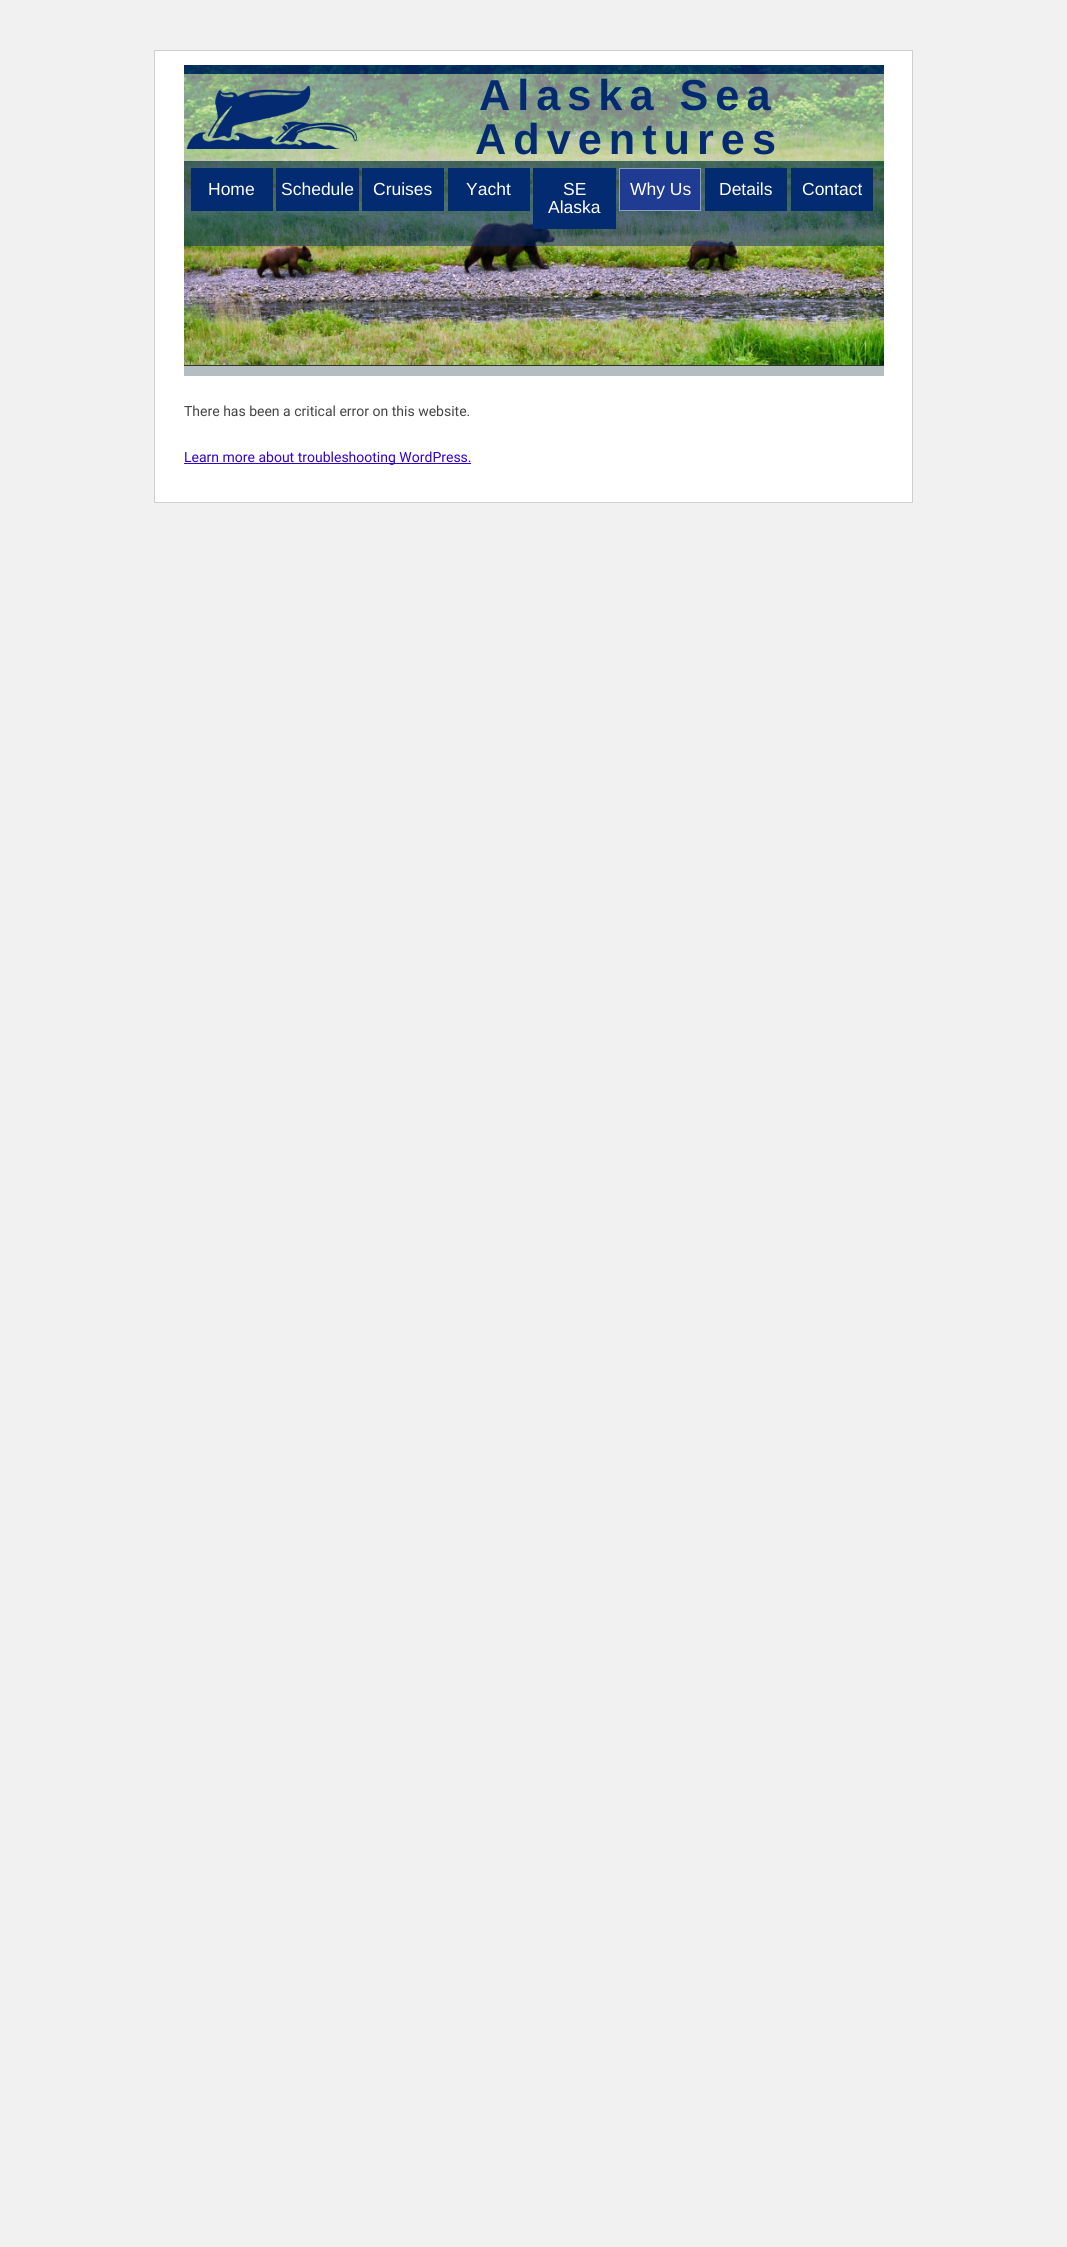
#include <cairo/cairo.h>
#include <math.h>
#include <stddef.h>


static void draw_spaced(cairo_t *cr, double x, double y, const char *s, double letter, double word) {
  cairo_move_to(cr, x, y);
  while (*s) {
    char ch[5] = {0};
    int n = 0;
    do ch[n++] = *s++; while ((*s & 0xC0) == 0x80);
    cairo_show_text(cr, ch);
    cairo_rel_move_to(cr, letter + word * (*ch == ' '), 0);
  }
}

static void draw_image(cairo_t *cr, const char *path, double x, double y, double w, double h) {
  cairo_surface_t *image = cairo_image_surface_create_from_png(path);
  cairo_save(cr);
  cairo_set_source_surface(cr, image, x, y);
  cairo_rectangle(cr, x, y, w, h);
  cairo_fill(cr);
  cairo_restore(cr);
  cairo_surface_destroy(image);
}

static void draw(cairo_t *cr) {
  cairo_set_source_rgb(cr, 241 / 255.0, 241 / 255.0, 241 / 255.0);
  cairo_paint(cr);
  cairo_set_source_rgb(cr, 1, 1, 1);
  cairo_rectangle(cr, 154.5, 50.5, 758, 452);
  cairo_fill_preserve(cr);
  cairo_set_source_rgb(cr, 204 / 255.0, 208 / 255.0, 212 / 255.0);
  cairo_set_line_width(cr, 1);
  cairo_stroke(cr);
  cairo_set_source_rgb(cr, 51 / 255.0, 51 / 255.0, 51 / 255.0);
  cairo_rectangle(cr, 184, 365, 700, 1);
  cairo_fill(cr);
  draw_image(cr, "images/1.png", 184, 65, 700, 300);
  cairo_set_source_rgb(cr, 179 / 255.0, 189 / 255.0, 194 / 255.0);
  cairo_rectangle(cr, 184, 366, 700, 10);
  cairo_fill(cr);
  cairo_set_source_rgba(cr, 3 / 255.0, 43 / 255.0, 113 / 255.0, 0.75);
  cairo_rectangle(cr, 184, 65, 700, 9);
  cairo_fill(cr);
  cairo_set_source_rgba(cr, 1, 1, 1, 0.5);
  cairo_rectangle(cr, 184, 74, 700, 87);
  cairo_fill(cr);
  draw_image(cr, "images/2.png", 186, 86, 171, 63);
  cairo_set_source_rgba(cr, 3 / 255.0, 43 / 255.0, 113 / 255.0, 0.5);
  cairo_rectangle(cr, 184, 161, 700, 85);
  cairo_fill(cr);
  cairo_set_source_rgb(cr, 3 / 255.0, 43 / 255.0, 113 / 255.0);
  cairo_rectangle(cr, 191, 168, 82, 43);
  cairo_fill(cr);
  cairo_rectangle(cr, 276, 168, 83, 43);
  cairo_fill(cr);
  cairo_rectangle(cr, 362, 168, 82, 43);
  cairo_fill(cr);
  cairo_rectangle(cr, 448, 168, 82, 43);
  cairo_fill(cr);
  cairo_rectangle(cr, 533, 168, 83, 61);
  cairo_fill(cr);
  cairo_set_source_rgb(cr, 31 / 255.0, 59 / 255.0, 146 / 255.0);
  cairo_rectangle(cr, 619.5, 168.5, 81, 42);
  cairo_fill_preserve(cr);
  cairo_set_source_rgb(cr, 143 / 255.0, 157 / 255.0, 201 / 255.0);
  cairo_stroke(cr);
  cairo_set_source_rgb(cr, 3 / 255.0, 43 / 255.0, 113 / 255.0);
  cairo_rectangle(cr, 705, 168, 82, 43);
  cairo_fill(cr);
  cairo_rectangle(cr, 791, 168, 82, 43);
  cairo_fill(cr);
  cairo_set_source_rgb(cr, 51 / 255.0, 0, 204 / 255.0);
  cairo_rectangle(cr, 184, 463, 287, 1);
  cairo_fill(cr);
  cairo_select_font_face(cr, "Liberation Sans", CAIRO_FONT_SLANT_NORMAL, CAIRO_FONT_WEIGHT_BOLD);
  cairo_set_font_size(cr, 43.25);
  cairo_set_source_rgb(cr, 4 / 255.0, 42 / 255.0, 113 / 255.0);
  draw_spaced(cr, 479, 110, "Alaska Sea", 7, 0);
  draw_spaced(cr, 475, 154, "Adventures", 7, 0);
  cairo_select_font_face(cr, "Liberation Sans", CAIRO_FONT_SLANT_NORMAL, CAIRO_FONT_WEIGHT_NORMAL);
  cairo_set_font_size(cr, 17.5);
  cairo_set_source_rgb(cr, 1, 1, 1);
  cairo_move_to(cr, 208, 195);
  cairo_show_text(cr, "Home");
  cairo_move_to(cr, 281, 195);
  cairo_show_text(cr, "Schedule");
  cairo_move_to(cr, 373, 195);
  cairo_show_text(cr, "Cruises");
  cairo_move_to(cr, 466, 195);
  cairo_show_text(cr, "Yacht");
  cairo_move_to(cr, 563, 195);
  cairo_show_text(cr, "SE");
  cairo_move_to(cr, 548, 213);
  cairo_show_text(cr, "Alaska");
  cairo_move_to(cr, 630, 195);
  cairo_show_text(cr, "Why Us");
  cairo_move_to(cr, 719, 195);
  cairo_show_text(cr, "Details");
  cairo_move_to(cr, 802, 195);
  cairo_show_text(cr, "Contact");
  cairo_select_font_face(cr, "Roboto", CAIRO_FONT_SLANT_NORMAL, CAIRO_FONT_WEIGHT_NORMAL);
  cairo_set_font_size(cr, 14);
  cairo_set_source_rgb(cr, 68 / 255.0, 68 / 255.0, 68 / 255.0);
  cairo_move_to(cr, 184, 416);
  cairo_show_text(cr, "There has been a critical error on this website.");
  cairo_set_source_rgb(cr, 51 / 255.0, 0, 204 / 255.0);
  cairo_move_to(cr, 184, 462);
  cairo_show_text(cr, "Learn more about troubleshooting WordPress.");
}

int main(void) {
  cairo_surface_t *surface = cairo_image_surface_create(CAIRO_FORMAT_RGB24, 1067, 2247);
  cairo_t *cr = cairo_create(surface);
  cairo_font_options_t *options = cairo_font_options_create();
  cairo_font_options_set_hint_metrics(options, CAIRO_HINT_METRICS_OFF);
  cairo_font_options_set_hint_style(options, CAIRO_HINT_STYLE_NONE);
  cairo_set_font_options(cr, options);
  cairo_set_miter_limit(cr, 4);
  draw(cr);
  cairo_surface_write_to_png(surface, "out.png");
  cairo_font_options_destroy(options);
  cairo_destroy(cr);
  cairo_surface_destroy(surface);
  return 0;
}
